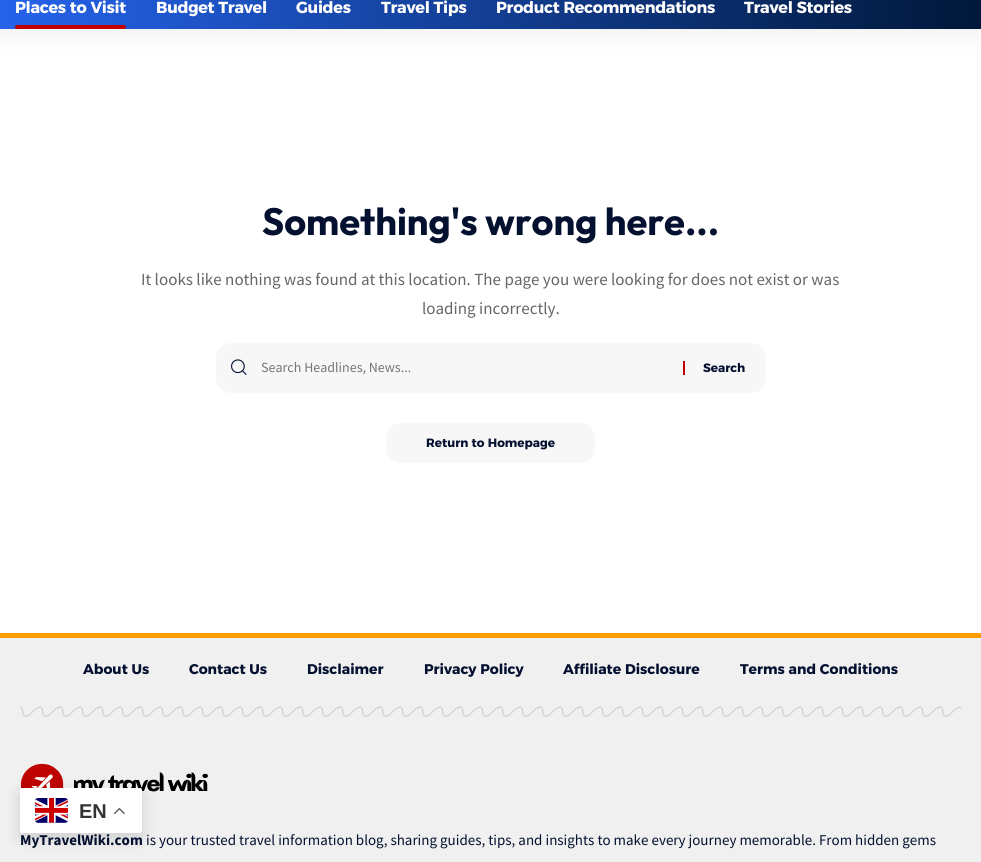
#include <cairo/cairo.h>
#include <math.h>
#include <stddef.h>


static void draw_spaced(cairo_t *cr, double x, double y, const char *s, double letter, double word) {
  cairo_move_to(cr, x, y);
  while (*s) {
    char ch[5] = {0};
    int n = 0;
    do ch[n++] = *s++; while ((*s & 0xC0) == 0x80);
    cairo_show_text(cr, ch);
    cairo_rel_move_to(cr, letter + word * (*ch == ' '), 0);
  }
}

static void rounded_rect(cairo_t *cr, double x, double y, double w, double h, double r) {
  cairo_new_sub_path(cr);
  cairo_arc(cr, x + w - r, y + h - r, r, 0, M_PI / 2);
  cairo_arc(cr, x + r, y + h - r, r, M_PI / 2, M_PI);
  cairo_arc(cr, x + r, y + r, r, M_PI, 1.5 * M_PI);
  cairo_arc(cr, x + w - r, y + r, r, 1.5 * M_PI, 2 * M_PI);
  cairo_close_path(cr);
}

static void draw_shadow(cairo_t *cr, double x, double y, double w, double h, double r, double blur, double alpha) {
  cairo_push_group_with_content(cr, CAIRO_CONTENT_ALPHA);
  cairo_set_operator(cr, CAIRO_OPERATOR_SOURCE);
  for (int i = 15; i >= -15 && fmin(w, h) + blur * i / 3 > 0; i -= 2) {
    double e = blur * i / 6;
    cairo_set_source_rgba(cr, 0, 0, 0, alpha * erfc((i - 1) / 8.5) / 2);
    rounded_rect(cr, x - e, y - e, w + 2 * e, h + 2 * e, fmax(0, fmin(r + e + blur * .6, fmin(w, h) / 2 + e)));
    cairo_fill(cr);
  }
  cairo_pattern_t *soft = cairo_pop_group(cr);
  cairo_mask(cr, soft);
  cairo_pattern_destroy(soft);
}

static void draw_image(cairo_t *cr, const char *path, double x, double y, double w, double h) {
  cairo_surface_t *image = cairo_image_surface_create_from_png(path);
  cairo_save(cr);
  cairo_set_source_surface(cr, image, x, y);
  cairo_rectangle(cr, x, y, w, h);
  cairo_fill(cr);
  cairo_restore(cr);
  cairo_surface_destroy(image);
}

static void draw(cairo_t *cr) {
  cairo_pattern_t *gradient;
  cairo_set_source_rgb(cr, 1, 1, 1);
  cairo_paint(cr);
  cairo_set_source_rgb(cr, 0, 0, 0);
  draw_shadow(cr, 0, -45, 981, 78, 0, 15, 0.07);
  gradient = cairo_pattern_create_linear(0, -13, 981, -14);
  cairo_pattern_add_color_stop_rgba(gradient, 0, 37 / 255.0, 99 / 255.0, 235 / 255.0, 1);
  cairo_pattern_add_color_stop_rgba(gradient, 1, 0, 24 / 255.0, 57 / 255.0, 1);
  cairo_set_source(cr, gradient);
  cairo_pattern_destroy(gradient);
  cairo_rectangle(cr, 0, 0, 981, 29);
  cairo_fill(cr);
  cairo_set_source_rgb(cr, 192 / 255.0, 0, 0);
  rounded_rect(cr, 15, 25, 111, 4, 2);
  cairo_fill(cr);
  cairo_set_source_rgb(cr, 247 / 255.0, 247 / 255.0, 247 / 255.0);
  rounded_rect(cr, 216, 343, 550, 50, 15);
  cairo_fill(cr);
  draw_image(cr, "images/1.png", 231, 359, 16, 16);
  cairo_set_source_rgb(cr, 192 / 255.0, 0, 0);
  cairo_rectangle(cr, 683, 361, 2, 14);
  cairo_fill(cr);
  cairo_set_source_rgb(cr, 247 / 255.0, 247 / 255.0, 247 / 255.0);
  rounded_rect(cr, 386, 423, 209, 40, 15);
  cairo_fill(cr);
  cairo_set_source_rgb(cr, 240 / 255.0, 240 / 255.0, 240 / 255.0);
  cairo_rectangle(cr, 0, 638, 981, 224);
  cairo_fill(cr);
  cairo_set_source_rgb(cr, 1, 156 / 255.0, 0);
  cairo_rectangle(cr, 0, 633, 981, 5);
  cairo_fill(cr);
  draw_image(cr, "images/2.png", 20, 706, 941, 11);
  draw_image(cr, "images/3.png", 20, 763, 188, 29);
  cairo_set_source_rgb(cr, 0, 0, 0);
  draw_shadow(cr, 20, 793, 122, 45, 2, 7.5, 0.15);
  cairo_set_source_rgb(cr, 1, 1, 1);
  rounded_rect(cr, 20, 788, 122, 45, 2);
  cairo_fill(cr);
  draw_image(cr, "images/4.png", 35, 798, 33, 25);
  draw_image(cr, "images/5.png", 114, 807, 11, 8);
  cairo_select_font_face(cr, "Alexandria", CAIRO_FONT_SLANT_NORMAL, CAIRO_FONT_WEIGHT_BOLD);
  cairo_set_font_size(cr, 16);
  draw_spaced(cr, 15, 13, "Places to Visit", -0.3, 0);
  draw_spaced(cr, 156, 13, "Budget Travel", -0.3, 0);
  draw_spaced(cr, 296, 13, "Guides", -0.3, 0);
  draw_spaced(cr, 381, 13, "Travel Tips", -0.3, 0);
  draw_spaced(cr, 496, 13, "Product Recommendations", -0.3, 0);
  draw_spaced(cr, 744, 13, "Travel Stories", -0.3, 0);
  cairo_select_font_face(cr, "Outfit", CAIRO_FONT_SLANT_NORMAL, CAIRO_FONT_WEIGHT_BOLD);
  cairo_set_font_size(cr, 38);
  cairo_set_source_rgb(cr, 4 / 255.0, 16 / 255.0, 47 / 255.0);
  cairo_move_to(cr, 262, 235);
  cairo_show_text(cr, "Something's wrong here...");
  cairo_select_font_face(cr, "Source Sans Pro", CAIRO_FONT_SLANT_NORMAL, CAIRO_FONT_WEIGHT_NORMAL);
  cairo_set_font_size(cr, 17);
  cairo_set_source_rgb(cr, 102 / 255.0, 102 / 255.0, 102 / 255.0);
  cairo_move_to(cr, 141, 285);
  cairo_show_text(cr, "It looks like nothing was found at this location. The page you were looking for does not exist or was");
  cairo_move_to(cr, 422, 314);
  cairo_show_text(cr, "loading incorrectly.");
  cairo_set_font_size(cr, 14);
  cairo_set_source_rgb(cr, 117 / 255.0, 117 / 255.0, 117 / 255.0);
  cairo_move_to(cr, 261, 372);
  cairo_show_text(cr, "Search Headlines, News...");
  cairo_select_font_face(cr, "Alexandria", CAIRO_FONT_SLANT_NORMAL, CAIRO_FONT_WEIGHT_BOLD);
  cairo_set_font_size(cr, 12);
  cairo_set_source_rgb(cr, 4 / 255.0, 16 / 255.0, 47 / 255.0);
  cairo_move_to(cr, 703, 372);
  cairo_show_text(cr, "Search");
  cairo_move_to(cr, 426, 447);
  cairo_show_text(cr, "Return to Homepage");
  cairo_set_font_size(cr, 14);
  cairo_move_to(cr, 83, 674);
  cairo_show_text(cr, "About Us");
  cairo_move_to(cr, 189, 674);
  cairo_show_text(cr, "Contact Us");
  cairo_move_to(cr, 307, 674);
  cairo_show_text(cr, "Disclaimer");
  cairo_move_to(cr, 424, 674);
  cairo_show_text(cr, "Privacy Policy");
  cairo_move_to(cr, 563, 674);
  cairo_show_text(cr, "Affiliate Disclosure");
  cairo_move_to(cr, 740, 674);
  cairo_show_text(cr, "Terms and Conditions");
  cairo_select_font_face(cr, "Source Sans Pro", CAIRO_FONT_SLANT_NORMAL, CAIRO_FONT_WEIGHT_BOLD);
  cairo_set_font_size(cr, 15);
  cairo_move_to(cr, 20, 845);
  cairo_show_text(cr, "MyTravelWiki.com");
  cairo_select_font_face(cr, "Source Sans Pro", CAIRO_FONT_SLANT_NORMAL, CAIRO_FONT_WEIGHT_NORMAL);
  cairo_move_to(cr, 146, 845);
  cairo_show_text(cr, "is your trusted travel information blog, sharing guides, tips, and insights to make every journey memorable. From hidden gems");
  cairo_select_font_face(cr, "Liberation Sans", CAIRO_FONT_SLANT_NORMAL, CAIRO_FONT_WEIGHT_BOLD);
  cairo_set_font_size(cr, 20);
  cairo_set_source_rgb(cr, 51 / 255.0, 51 / 255.0, 51 / 255.0);
  cairo_move_to(cr, 79, 818);
  cairo_show_text(cr, "EN");
}

int main(void) {
  cairo_surface_t *surface = cairo_image_surface_create(CAIRO_FORMAT_RGB24, 981, 862);
  cairo_t *cr = cairo_create(surface);
  cairo_font_options_t *options = cairo_font_options_create();
  cairo_font_options_set_hint_metrics(options, CAIRO_HINT_METRICS_OFF);
  cairo_font_options_set_hint_style(options, CAIRO_HINT_STYLE_NONE);
  cairo_set_font_options(cr, options);
  cairo_set_miter_limit(cr, 4);
  draw(cr);
  cairo_surface_write_to_png(surface, "out.png");
  cairo_font_options_destroy(options);
  cairo_destroy(cr);
  cairo_surface_destroy(surface);
  return 0;
}
